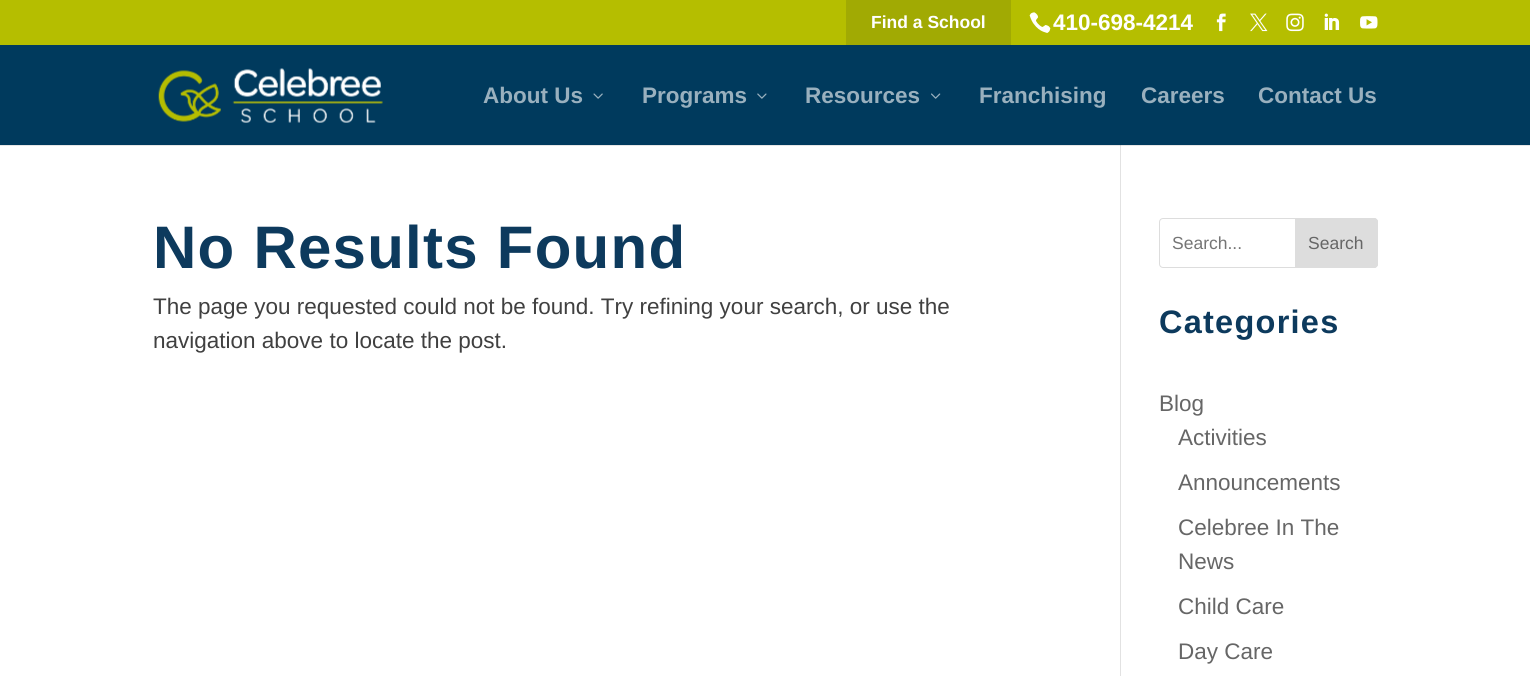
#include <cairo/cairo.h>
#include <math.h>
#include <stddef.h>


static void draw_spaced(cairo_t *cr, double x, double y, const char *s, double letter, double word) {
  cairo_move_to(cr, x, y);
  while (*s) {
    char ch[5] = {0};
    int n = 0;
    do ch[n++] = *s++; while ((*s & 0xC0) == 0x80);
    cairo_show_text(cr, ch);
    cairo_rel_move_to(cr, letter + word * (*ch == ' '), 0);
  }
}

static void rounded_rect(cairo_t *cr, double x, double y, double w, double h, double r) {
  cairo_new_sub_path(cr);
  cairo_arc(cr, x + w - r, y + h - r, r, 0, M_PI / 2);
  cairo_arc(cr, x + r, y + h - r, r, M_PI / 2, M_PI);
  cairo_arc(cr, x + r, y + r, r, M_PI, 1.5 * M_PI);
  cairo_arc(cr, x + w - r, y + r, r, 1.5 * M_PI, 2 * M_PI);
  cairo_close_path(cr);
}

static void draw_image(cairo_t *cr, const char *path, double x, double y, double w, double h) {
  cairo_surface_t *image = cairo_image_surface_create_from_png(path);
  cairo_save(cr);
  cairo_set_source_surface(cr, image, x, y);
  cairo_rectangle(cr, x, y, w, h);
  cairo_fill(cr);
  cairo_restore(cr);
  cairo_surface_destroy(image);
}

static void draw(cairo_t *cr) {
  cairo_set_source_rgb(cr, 1, 1, 1);
  cairo_paint(cr);
  cairo_set_source_rgb(cr, 230 / 255.0, 230 / 255.0, 230 / 255.0);
  cairo_rectangle(cr, 0, 145, 1530, 1);
  cairo_fill(cr);
  cairo_set_source_rgb(cr, 181 / 255.0, 190 / 255.0, 0);
  cairo_rectangle(cr, 0, 0, 1530, 45);
  cairo_fill(cr);
  cairo_set_source_rgb(cr, 161 / 255.0, 170 / 255.0, 3 / 255.0);
  cairo_rectangle(cr, 846, 0, 165, 45);
  cairo_fill(cr);
  draw_image(cr, "images/1.png", 1029, 12, 22, 21);
  draw_image(cr, "images/2.png", 1216, 13, 10, 19);
  draw_image(cr, "images/3.png", 1250, 13, 18, 19);
  draw_image(cr, "images/4.png", 1286, 13, 18, 19);
  draw_image(cr, "images/5.png", 1324, 13, 16, 17);
  draw_image(cr, "images/6.png", 1360, 16, 18, 13);
  cairo_set_source_rgb(cr, 0, 58 / 255.0, 93 / 255.0);
  cairo_rectangle(cr, 0, 45, 1530, 100);
  cairo_fill(cr);
  draw_image(cr, "images/7.png", 158, 68, 225, 55);
  draw_image(cr, "images/8.png", 593, 93, 10, 6);
  draw_image(cr, "images/9.png", 757, 93, 10, 6);
  draw_image(cr, "images/10.png", 931, 93, 10, 6);
  cairo_set_source_rgb(cr, 226 / 255.0, 226 / 255.0, 226 / 255.0);
  cairo_rectangle(cr, 1120, 145, 1, 531);
  cairo_fill(cr);
  cairo_set_source_rgb(cr, 203 / 255.0, 203 / 255.0, 203 / 255.0);
  cairo_rectangle(cr, 1120, 145, 1, 1);
  cairo_fill(cr);
  rounded_rect(cr, 1159.5, 218.5, 218, 49, 3.5);
  cairo_set_source_rgb(cr, 221 / 255.0, 221 / 255.0, 221 / 255.0);
  cairo_set_line_width(cr, 1);
  cairo_stroke(cr);
  cairo_new_path(cr);
  cairo_move_to(cr, 1295.5, 218.5);
  cairo_line_to(cr, 1374, 218.5);
  cairo_curve_to(cr, 1376, 218.5, 1377.5, 220, 1377.5, 222);
  cairo_line_to(cr, 1377.5, 264);
  cairo_curve_to(cr, 1377.5, 266, 1376, 267.5, 1374, 267.5);
  cairo_line_to(cr, 1295.5, 267.5);
  cairo_close_path(cr);
  cairo_fill_preserve(cr);
  cairo_stroke(cr);
  cairo_select_font_face(cr, "Liberation Sans", CAIRO_FONT_SLANT_NORMAL, CAIRO_FONT_WEIGHT_BOLD);
  cairo_set_font_size(cr, 17.5);
  cairo_set_source_rgb(cr, 1, 1, 1);
  cairo_move_to(cr, 871, 28);
  cairo_show_text(cr, "Find a School");
  cairo_set_font_size(cr, 22.5);
  cairo_move_to(cr, 1053, 30);
  cairo_show_text(cr, "410-698-4214");
  cairo_set_source_rgb(cr, 153 / 255.0, 176 / 255.0, 190 / 255.0);
  cairo_move_to(cr, 483, 103);
  cairo_show_text(cr, "About Us");
  cairo_move_to(cr, 642, 103);
  cairo_show_text(cr, "Programs");
  cairo_move_to(cr, 805, 103);
  cairo_show_text(cr, "Resources");
  cairo_move_to(cr, 979, 103);
  cairo_show_text(cr, "Franchising");
  cairo_move_to(cr, 1141, 103);
  cairo_show_text(cr, "Careers");
  cairo_move_to(cr, 1258, 103);
  cairo_show_text(cr, "Contact Us");
  cairo_set_font_size(cr, 60);
  cairo_set_source_rgb(cr, 13 / 255.0, 58 / 255.0, 93 / 255.0);
  draw_spaced(cr, 153, 268, "No Results Found", 1.25, 0);
  cairo_select_font_face(cr, "Liberation Sans", CAIRO_FONT_SLANT_NORMAL, CAIRO_FONT_WEIGHT_NORMAL);
  cairo_set_font_size(cr, 22.5);
  cairo_set_source_rgb(cr, 64 / 255.0, 64 / 255.0, 64 / 255.0);
  cairo_move_to(cr, 153, 314);
  cairo_show_text(cr, "The page you requested could not be found. Try refining your search, or use the");
  cairo_move_to(cr, 153, 348);
  cairo_show_text(cr, "navigation above to locate the post.");
  cairo_set_font_size(cr, 17.5);
  cairo_set_source_rgb(cr, 117 / 255.0, 117 / 255.0, 117 / 255.0);
  cairo_move_to(cr, 1172, 249);
  cairo_show_text(cr, "Search...");
  cairo_set_source_rgb(cr, 102 / 255.0, 102 / 255.0, 102 / 255.0);
  cairo_move_to(cr, 1308, 249);
  cairo_show_text(cr, "Search");
  cairo_select_font_face(cr, "Liberation Sans", CAIRO_FONT_SLANT_NORMAL, CAIRO_FONT_WEIGHT_BOLD);
  cairo_set_font_size(cr, 32.5);
  cairo_set_source_rgb(cr, 13 / 255.0, 58 / 255.0, 93 / 255.0);
  draw_spaced(cr, 1159, 333, "Categories", 1.25, 0);
  cairo_select_font_face(cr, "Liberation Sans", CAIRO_FONT_SLANT_NORMAL, CAIRO_FONT_WEIGHT_NORMAL);
  cairo_set_font_size(cr, 22.5);
  cairo_set_source_rgb(cr, 102 / 255.0, 102 / 255.0, 102 / 255.0);
  cairo_move_to(cr, 1159, 411);
  cairo_show_text(cr, "Blog");
  cairo_move_to(cr, 1178, 445);
  cairo_show_text(cr, "Activities");
  cairo_move_to(cr, 1178, 490);
  cairo_show_text(cr, "Announcements");
  cairo_move_to(cr, 1178, 535);
  cairo_show_text(cr, "Celebree In The");
  cairo_move_to(cr, 1178, 569);
  cairo_show_text(cr, "News");
  cairo_move_to(cr, 1178, 614);
  cairo_show_text(cr, "Child Care");
  cairo_move_to(cr, 1178, 659);
  cairo_show_text(cr, "Day Care");
}

int main(void) {
  cairo_surface_t *surface = cairo_image_surface_create(CAIRO_FORMAT_RGB24, 1530, 676);
  cairo_t *cr = cairo_create(surface);
  cairo_font_options_t *options = cairo_font_options_create();
  cairo_font_options_set_hint_metrics(options, CAIRO_HINT_METRICS_OFF);
  cairo_font_options_set_hint_style(options, CAIRO_HINT_STYLE_NONE);
  cairo_set_font_options(cr, options);
  cairo_set_miter_limit(cr, 4);
  draw(cr);
  cairo_surface_write_to_png(surface, "out.png");
  cairo_font_options_destroy(options);
  cairo_destroy(cr);
  cairo_surface_destroy(surface);
  return 0;
}
